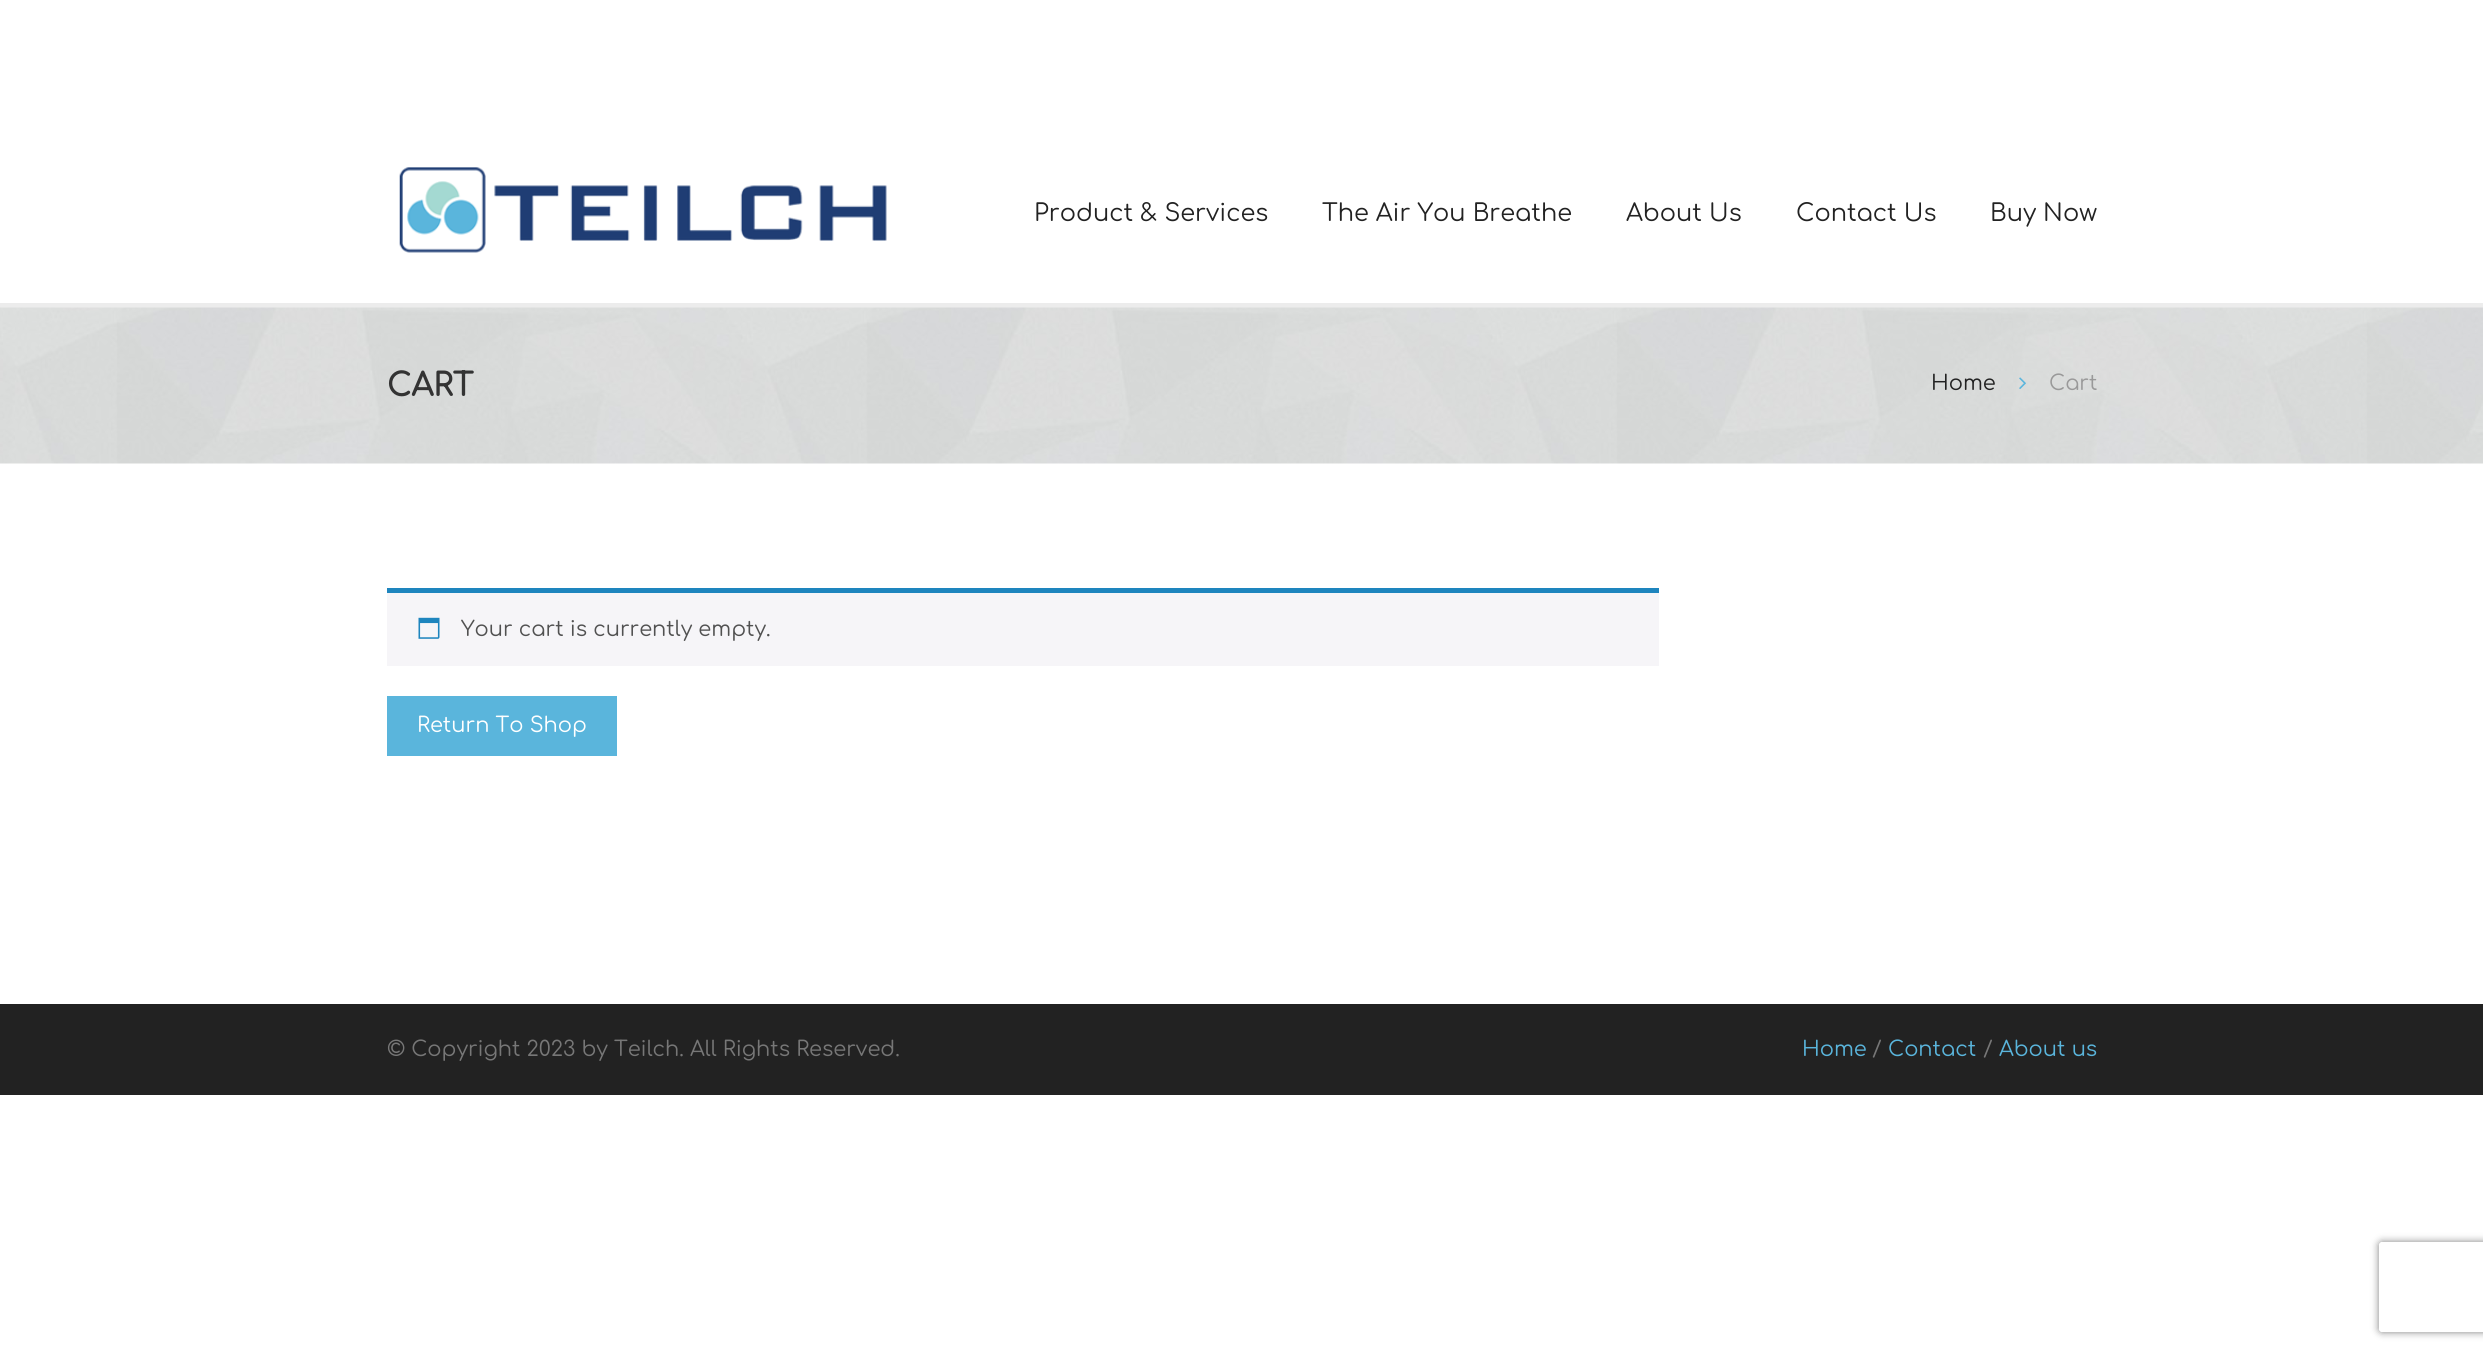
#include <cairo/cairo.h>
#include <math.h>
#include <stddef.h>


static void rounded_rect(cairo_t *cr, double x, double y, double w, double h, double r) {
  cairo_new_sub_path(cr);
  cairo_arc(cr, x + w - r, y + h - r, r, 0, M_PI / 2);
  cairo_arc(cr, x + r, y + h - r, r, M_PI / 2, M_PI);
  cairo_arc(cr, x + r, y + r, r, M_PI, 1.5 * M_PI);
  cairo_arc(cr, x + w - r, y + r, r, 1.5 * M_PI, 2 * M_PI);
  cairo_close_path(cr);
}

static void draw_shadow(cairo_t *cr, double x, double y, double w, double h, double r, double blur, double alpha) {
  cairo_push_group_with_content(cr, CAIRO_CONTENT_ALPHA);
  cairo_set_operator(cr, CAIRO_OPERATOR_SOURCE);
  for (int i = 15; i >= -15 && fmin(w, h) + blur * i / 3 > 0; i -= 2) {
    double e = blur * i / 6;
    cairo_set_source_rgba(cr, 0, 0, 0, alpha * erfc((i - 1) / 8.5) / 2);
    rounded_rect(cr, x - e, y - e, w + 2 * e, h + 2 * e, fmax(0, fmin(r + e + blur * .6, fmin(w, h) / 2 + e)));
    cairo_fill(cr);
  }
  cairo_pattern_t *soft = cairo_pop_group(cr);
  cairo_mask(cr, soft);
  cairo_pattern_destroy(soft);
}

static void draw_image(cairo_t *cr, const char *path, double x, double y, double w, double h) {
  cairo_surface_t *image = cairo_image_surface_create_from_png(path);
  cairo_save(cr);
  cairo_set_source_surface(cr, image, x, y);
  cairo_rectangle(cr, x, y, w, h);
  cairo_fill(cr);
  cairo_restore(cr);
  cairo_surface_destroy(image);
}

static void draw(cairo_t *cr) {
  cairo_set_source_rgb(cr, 1, 1, 1);
  cairo_paint(cr);
  draw_image(cr, "images/1.png", 399, 167, 488, 86);
  cairo_set_source_rgb(cr, 236 / 255.0, 236 / 255.0, 236 / 255.0);
  cairo_rectangle(cr, 0, 303, 2483, 5);
  cairo_fill(cr);
  draw_image(cr, "images/2.png", 0, 307, 2483, 157);
  draw_image(cr, "images/3.png", 2019, 377, 7, 12);
  cairo_set_source_rgb(cr, 246 / 255.0, 245 / 255.0, 248 / 255.0);
  cairo_rectangle(cr, 387, 593, 1272, 73);
  cairo_fill(cr);
  cairo_set_source_rgb(cr, 30 / 255.0, 133 / 255.0, 190 / 255.0);
  cairo_rectangle(cr, 387, 588, 1272, 5);
  cairo_fill(cr);
  draw_image(cr, "images/4.png", 418, 617, 22, 22);
  cairo_set_source_rgb(cr, 90 / 255.0, 181 / 255.0, 220 / 255.0);
  cairo_rectangle(cr, 387, 696, 230, 60);
  cairo_fill(cr);
  cairo_set_source_rgb(cr, 34 / 255.0, 34 / 255.0, 34 / 255.0);
  cairo_rectangle(cr, 0, 1004, 2483, 91);
  cairo_fill(cr);
  cairo_save(cr);
  cairo_set_fill_rule(cr, CAIRO_FILL_RULE_EVEN_ODD);
  cairo_new_path(cr);
  cairo_move_to(cr, 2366, 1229);
  cairo_line_to(cr, 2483, 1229);
  cairo_line_to(cr, 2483, 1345);
  cairo_line_to(cr, 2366, 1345);
  cairo_close_path(cr);
  cairo_move_to(cr, 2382, 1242);
  cairo_line_to(cr, 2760, 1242);
  cairo_curve_to(cr, 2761.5, 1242, 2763, 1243.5, 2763, 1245);
  cairo_line_to(cr, 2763, 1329);
  cairo_curve_to(cr, 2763, 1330.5, 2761.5, 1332, 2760, 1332);
  cairo_line_to(cr, 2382, 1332);
  cairo_curve_to(cr, 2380.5, 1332, 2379, 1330.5, 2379, 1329);
  cairo_line_to(cr, 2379, 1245);
  cairo_curve_to(cr, 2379, 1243.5, 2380.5, 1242, 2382, 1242);
  cairo_close_path(cr);
  cairo_clip(cr);
  cairo_set_source_rgb(cr, 128 / 255.0, 128 / 255.0, 128 / 255.0);
  draw_shadow(cr, 2379, 1242, 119, 90, 3, 4, 1);
  cairo_restore(cr);
  cairo_select_font_face(cr, "Comfortaa", CAIRO_FONT_SLANT_NORMAL, CAIRO_FONT_WEIGHT_NORMAL);
  cairo_set_font_size(cr, 24);
  cairo_move_to(cr, 1034, 221);
  cairo_show_text(cr, "Product & Services");
  cairo_move_to(cr, 1322, 221);
  cairo_show_text(cr, "The Air You Breathe");
  cairo_move_to(cr, 1626, 221);
  cairo_show_text(cr, "About Us");
  cairo_move_to(cr, 1796, 221);
  cairo_show_text(cr, "Contact Us");
  cairo_move_to(cr, 1990, 221);
  cairo_show_text(cr, "Buy Now");
  cairo_select_font_face(cr, "Comfortaa", CAIRO_FONT_SLANT_NORMAL, CAIRO_FONT_WEIGHT_BOLD);
  cairo_set_font_size(cr, 31.5);
  cairo_set_source_rgb(cr, 51 / 255.0, 51 / 255.0, 51 / 255.0);
  cairo_move_to(cr, 387, 396);
  cairo_show_text(cr, "CART");
  cairo_select_font_face(cr, "Comfortaa", CAIRO_FONT_SLANT_NORMAL, CAIRO_FONT_WEIGHT_NORMAL);
  cairo_set_font_size(cr, 21);
  cairo_set_source_rgb(cr, 34 / 255.0, 34 / 255.0, 34 / 255.0);
  cairo_move_to(cr, 1931, 390);
  cairo_show_text(cr, "Home");
  cairo_set_source_rgb(cr, 153 / 255.0, 153 / 255.0, 153 / 255.0);
  cairo_move_to(cr, 2049, 390);
  cairo_show_text(cr, "Cart");
  cairo_set_source_rgb(cr, 81 / 255.0, 81 / 255.0, 81 / 255.0);
  cairo_move_to(cr, 461, 636);
  cairo_show_text(cr, "Your cart is currently empty.");
  cairo_set_source_rgb(cr, 1, 1, 1);
  cairo_move_to(cr, 417, 732);
  cairo_show_text(cr, "Return To Shop");
  cairo_set_source_rgb(cr, 119 / 255.0, 119 / 255.0, 119 / 255.0);
  cairo_move_to(cr, 387, 1056);
  cairo_show_text(cr, "© Copyright 2023 by Teilch. All Rights Reserved.");
  cairo_set_source_rgb(cr, 90 / 255.0, 181 / 255.0, 220 / 255.0);
  cairo_move_to(cr, 1802, 1056);
  cairo_show_text(cr, "Home");
  cairo_set_source_rgb(cr, 119 / 255.0, 119 / 255.0, 119 / 255.0);
  cairo_move_to(cr, 1872, 1056);
  cairo_show_text(cr, "/");
  cairo_set_source_rgb(cr, 90 / 255.0, 181 / 255.0, 220 / 255.0);
  cairo_move_to(cr, 1888, 1056);
  cairo_show_text(cr, "Contact");
  cairo_set_source_rgb(cr, 119 / 255.0, 119 / 255.0, 119 / 255.0);
  cairo_move_to(cr, 1983, 1056);
  cairo_show_text(cr, "/");
  cairo_set_source_rgb(cr, 90 / 255.0, 181 / 255.0, 220 / 255.0);
  cairo_move_to(cr, 1999, 1056);
  cairo_show_text(cr, "About us");
}

int main(void) {
  cairo_surface_t *surface = cairo_image_surface_create(CAIRO_FORMAT_RGB24, 2483, 1353);
  cairo_t *cr = cairo_create(surface);
  cairo_font_options_t *options = cairo_font_options_create();
  cairo_font_options_set_hint_metrics(options, CAIRO_HINT_METRICS_OFF);
  cairo_font_options_set_hint_style(options, CAIRO_HINT_STYLE_NONE);
  cairo_set_font_options(cr, options);
  cairo_set_miter_limit(cr, 4);
  draw(cr);
  cairo_surface_write_to_png(surface, "out.png");
  cairo_font_options_destroy(options);
  cairo_destroy(cr);
  cairo_surface_destroy(surface);
  return 0;
}
